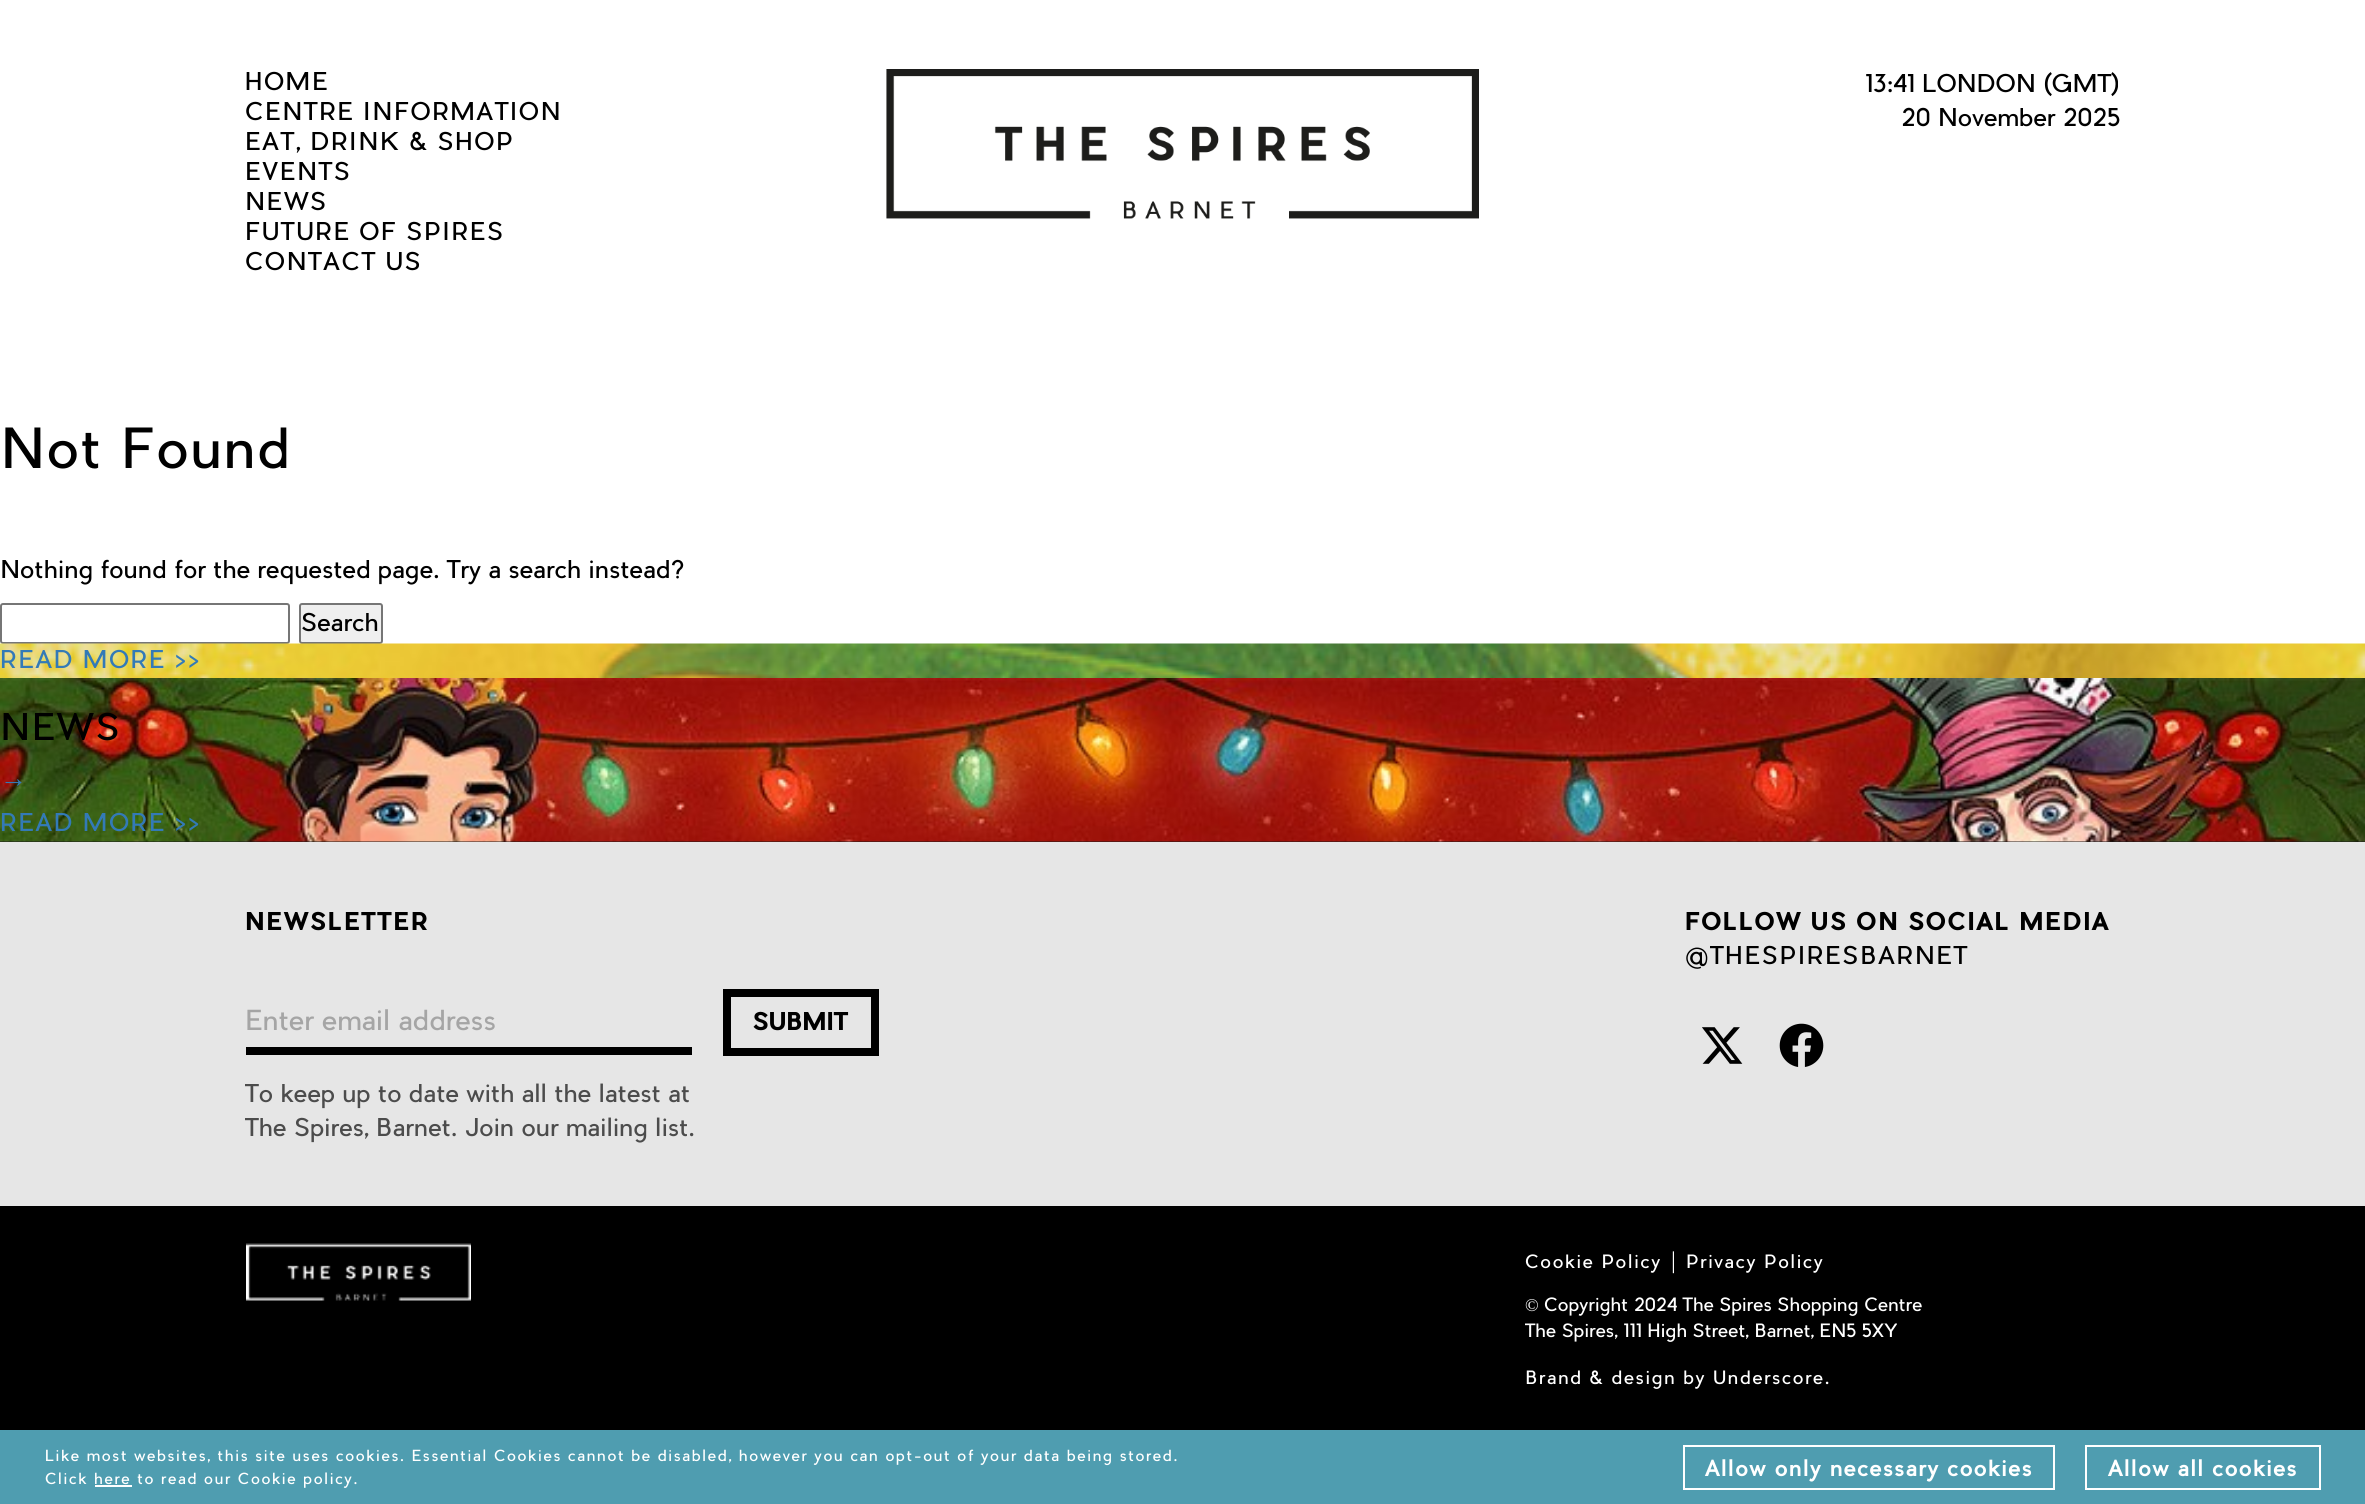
#include <cairo/cairo.h>
#include <math.h>
#include <stddef.h>


static void draw_spaced(cairo_t *cr, double x, double y, const char *s, double letter, double word) {
  cairo_move_to(cr, x, y);
  while (*s) {
    char ch[5] = {0};
    int n = 0;
    do ch[n++] = *s++; while ((*s & 0xC0) == 0x80);
    cairo_show_text(cr, ch);
    cairo_rel_move_to(cr, letter + word * (*ch == ' '), 0);
  }
}

static void rounded_rect(cairo_t *cr, double x, double y, double w, double h, double r) {
  cairo_new_sub_path(cr);
  cairo_arc(cr, x + w - r, y + h - r, r, 0, M_PI / 2);
  cairo_arc(cr, x + r, y + h - r, r, M_PI / 2, M_PI);
  cairo_arc(cr, x + r, y + r, r, M_PI, 1.5 * M_PI);
  cairo_arc(cr, x + w - r, y + r, r, 1.5 * M_PI, 2 * M_PI);
  cairo_close_path(cr);
}

static void draw_image(cairo_t *cr, const char *path, double x, double y, double w, double h) {
  cairo_surface_t *image = cairo_image_surface_create_from_png(path);
  cairo_save(cr);
  cairo_set_source_surface(cr, image, x, y);
  cairo_rectangle(cr, x, y, w, h);
  cairo_fill(cr);
  cairo_restore(cr);
  cairo_surface_destroy(image);
}

static void draw(cairo_t *cr) {
  cairo_set_source_rgb(cr, 1, 1, 1);
  cairo_paint(cr);
  draw_image(cr, "images/1.png", 886, 69, 593, 150);
  rounded_rect(cr, 1, 604, 288, 39, 2);
  cairo_set_source_rgb(cr, 118 / 255.0, 118 / 255.0, 118 / 255.0);
  cairo_stroke(cr);
  cairo_set_source_rgb(cr, 239 / 255.0, 239 / 255.0, 239 / 255.0);
  rounded_rect(cr, 300, 604, 82, 39, 2);
  cairo_fill_preserve(cr);
  cairo_set_source_rgb(cr, 118 / 255.0, 118 / 255.0, 118 / 255.0);
  cairo_stroke(cr);
  draw_image(cr, "images/2.png", 0, 643, 2365, 35);
  cairo_set_source_rgb(cr, 28 / 255.0, 28 / 255.0, 28 / 255.0);
  cairo_rectangle(cr, 0, 841, 2365, 1);
  cairo_fill(cr);
  draw_image(cr, "images/3.png", 0, 678, 2365, 164);
  cairo_set_source_rgb(cr, 79 / 255.0, 157 / 255.0, 176 / 255.0);
  cairo_rectangle(cr, 0, 1430, 2365, 74);
  cairo_fill(cr);
  cairo_set_source_rgb(cr, 1, 1, 1);
  cairo_rectangle(cr, 95, 1485, 37, 2);
  cairo_fill(cr);
  cairo_rectangle(cr, 1684, 1446, 370, 43);
  cairo_stroke(cr);
  cairo_rectangle(cr, 2086, 1446, 234, 43);
  cairo_stroke(cr);
  cairo_set_source_rgb(cr, 230 / 255.0, 230 / 255.0, 230 / 255.0);
  cairo_rectangle(cr, 0, 842, 2365, 364);
  cairo_fill(cr);
  cairo_set_source_rgb(cr, 0, 0, 0);
  cairo_rectangle(cr, 246, 1047, 446, 8);
  cairo_fill(cr);
  cairo_rectangle(cr, 727, 993, 148, 59);
  cairo_set_line_width(cr, 8);
  cairo_stroke(cr);
  draw_image(cr, "images/4.png", 1702, 1027, 41, 37);
  draw_image(cr, "images/5.png", 1779, 1023, 45, 44);
  cairo_rectangle(cr, 0, 1206, 2365, 224);
  cairo_fill(cr);
  draw_image(cr, "images/6.png", 246, 1243, 225, 58);
  cairo_select_font_face(cr, "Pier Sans", CAIRO_FONT_SLANT_NORMAL, CAIRO_FONT_WEIGHT_NORMAL);
  cairo_set_font_size(cr, 24);
  draw_spaced(cr, 245, 90, "HOME", 1.5, 0);
  draw_spaced(cr, 245, 120, "CENTRE INFORMATION", 1.5, 0);
  draw_spaced(cr, 245, 150, "EAT, DRINK & SHOP", 1.5, 0);
  draw_spaced(cr, 245, 180, "EVENTS", 1.5, 0);
  draw_spaced(cr, 245, 210, "NEWS", 1.5, 0);
  draw_spaced(cr, 245, 240, "FUTURE OF SPIRES", 1.5, 0);
  draw_spaced(cr, 245, 270, "CONTACT US", 1.5, 0);
  cairo_move_to(cr, 1865, 92);
  cairo_show_text(cr, "13:41 LONDON (GMT)");
  cairo_move_to(cr, 1901, 126);
  cairo_show_text(cr, "20 November 2025");
  cairo_set_font_size(cr, 54);
  draw_spaced(cr, 0, 468, "Not Found", 1.5, 0);
  cairo_set_font_size(cr, 24);
  cairo_move_to(cr, 0, 578);
  cairo_show_text(cr, "Nothing found for the requested page. Try a search instead?");
  cairo_move_to(cr, 301, 631);
  cairo_show_text(cr, "Search");
  cairo_set_source_rgb(cr, 51 / 255.0, 122 / 255.0, 183 / 255.0);
  draw_spaced(cr, 0, 668, "READ MORE >>", 1.5, 0);
  cairo_set_font_size(cr, 36);
  cairo_set_source_rgb(cr, 0, 0, 0);
  draw_spaced(cr, 0, 740, "NEWS", 1.5, 0);
  cairo_select_font_face(cr, "Liberation Serif", CAIRO_FONT_SLANT_NORMAL, CAIRO_FONT_WEIGHT_NORMAL);
  cairo_set_font_size(cr, 27);
  cairo_set_source_rgb(cr, 51 / 255.0, 122 / 255.0, 183 / 255.0);
  draw_spaced(cr, 0, 787, "→", 1.5, 0);
  cairo_select_font_face(cr, "Pier Sans", CAIRO_FONT_SLANT_NORMAL, CAIRO_FONT_WEIGHT_NORMAL);
  cairo_set_font_size(cr, 24);
  draw_spaced(cr, 0, 831, "READ MORE >>", 1.5, 0);
  cairo_set_font_size(cr, 15);
  cairo_set_source_rgb(cr, 1, 1, 1);
  draw_spaced(cr, 45, 1461, "Like most websites, this site uses cookies. Essential Cookies cannot be disabled, however you can opt-out of your data being stored.", 1.5, 0);
  draw_spaced(cr, 45, 1484, "Click here to read our Cookie policy.", 1.5, 0);
  cairo_select_font_face(cr, "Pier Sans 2", CAIRO_FONT_SLANT_NORMAL, CAIRO_FONT_WEIGHT_BOLD);
  cairo_set_font_size(cr, 21);
  draw_spaced(cr, 1705, 1476, "Allow only necessary cookies", 1.5, 0);
  draw_spaced(cr, 2108, 1476, "Allow all cookies", 1.5, 0);
  cairo_select_font_face(cr, "Pier Sans", CAIRO_FONT_SLANT_NORMAL, CAIRO_FONT_WEIGHT_BOLD);
  cairo_set_font_size(cr, 24);
  cairo_set_source_rgb(cr, 0, 0, 0);
  draw_spaced(cr, 245, 930, "NEWSLETTER", 1.5, 0);
  cairo_select_font_face(cr, "Pier Sans", CAIRO_FONT_SLANT_NORMAL, CAIRO_FONT_WEIGHT_NORMAL);
  cairo_set_font_size(cr, 27);
  cairo_set_source_rgb(cr, 165 / 255.0, 165 / 255.0, 165 / 255.0);
  cairo_move_to(cr, 245, 1030);
  cairo_show_text(cr, "Enter email address");
  cairo_select_font_face(cr, "Pier Sans", CAIRO_FONT_SLANT_NORMAL, CAIRO_FONT_WEIGHT_BOLD);
  cairo_set_font_size(cr, 24);
  cairo_set_source_rgb(cr, 0, 0, 0);
  cairo_move_to(cr, 753, 1030);
  cairo_show_text(cr, "SUBMIT");
  cairo_select_font_face(cr, "Pier Sans", CAIRO_FONT_SLANT_NORMAL, CAIRO_FONT_WEIGHT_NORMAL);
  cairo_set_source_rgb(cr, 76 / 255.0, 76 / 255.0, 76 / 255.0);
  cairo_move_to(cr, 245, 1102);
  cairo_show_text(cr, "To keep up to date with all the latest at");
  cairo_move_to(cr, 245, 1136);
  cairo_show_text(cr, "The Spires, Barnet. Join our mailing list.");
  cairo_select_font_face(cr, "Pier Sans", CAIRO_FONT_SLANT_NORMAL, CAIRO_FONT_WEIGHT_BOLD);
  cairo_set_source_rgb(cr, 0, 0, 0);
  draw_spaced(cr, 1685, 930, "FOLLOW US ON SOCIAL MEDIA", 1.5, 0);
  cairo_select_font_face(cr, "Pier Sans", CAIRO_FONT_SLANT_NORMAL, CAIRO_FONT_WEIGHT_NORMAL);
  draw_spaced(cr, 1685, 964, "@THESPIRESBARNET", 1.5, 0);
  cairo_set_font_size(cr, 18);
  cairo_set_source_rgb(cr, 1, 1, 1);
  draw_spaced(cr, 1525, 1268, "Cookie Policy", 1.5, 0);
  cairo_select_font_face(cr, "Liberation Serif", CAIRO_FONT_SLANT_NORMAL, CAIRO_FONT_WEIGHT_NORMAL);
  cairo_set_font_size(cr, 24);
  draw_spaced(cr, 1671, 1268, "|", 1.5, 0);
  cairo_select_font_face(cr, "Pier Sans", CAIRO_FONT_SLANT_NORMAL, CAIRO_FONT_WEIGHT_NORMAL);
  cairo_set_font_size(cr, 18);
  draw_spaced(cr, 1686, 1268, "Privacy Policy", 1.5, 0);
  cairo_select_font_face(cr, "Liberation Serif", CAIRO_FONT_SLANT_NORMAL, CAIRO_FONT_WEIGHT_NORMAL);
  cairo_move_to(cr, 1525, 1311);
  cairo_show_text(cr, "©");
  cairo_select_font_face(cr, "Pier Sans", CAIRO_FONT_SLANT_NORMAL, CAIRO_FONT_WEIGHT_NORMAL);
  cairo_move_to(cr, 1544, 1311);
  cairo_show_text(cr, "Copyright 2024 The Spires Shopping Centre");
  cairo_move_to(cr, 1525, 1337);
  cairo_show_text(cr, "The Spires, 111 High Street, Barnet, EN5 5XY");
  draw_spaced(cr, 1525, 1384, "Brand & design by Underscore.", 1.5, 0);
}

int main(void) {
  cairo_surface_t *surface = cairo_image_surface_create(CAIRO_FORMAT_RGB24, 2365, 1504);
  cairo_t *cr = cairo_create(surface);
  cairo_font_options_t *options = cairo_font_options_create();
  cairo_font_options_set_hint_metrics(options, CAIRO_HINT_METRICS_OFF);
  cairo_font_options_set_hint_style(options, CAIRO_HINT_STYLE_NONE);
  cairo_set_font_options(cr, options);
  cairo_set_miter_limit(cr, 4);
  draw(cr);
  cairo_surface_write_to_png(surface, "out.png");
  cairo_font_options_destroy(options);
  cairo_destroy(cr);
  cairo_surface_destroy(surface);
  return 0;
}
